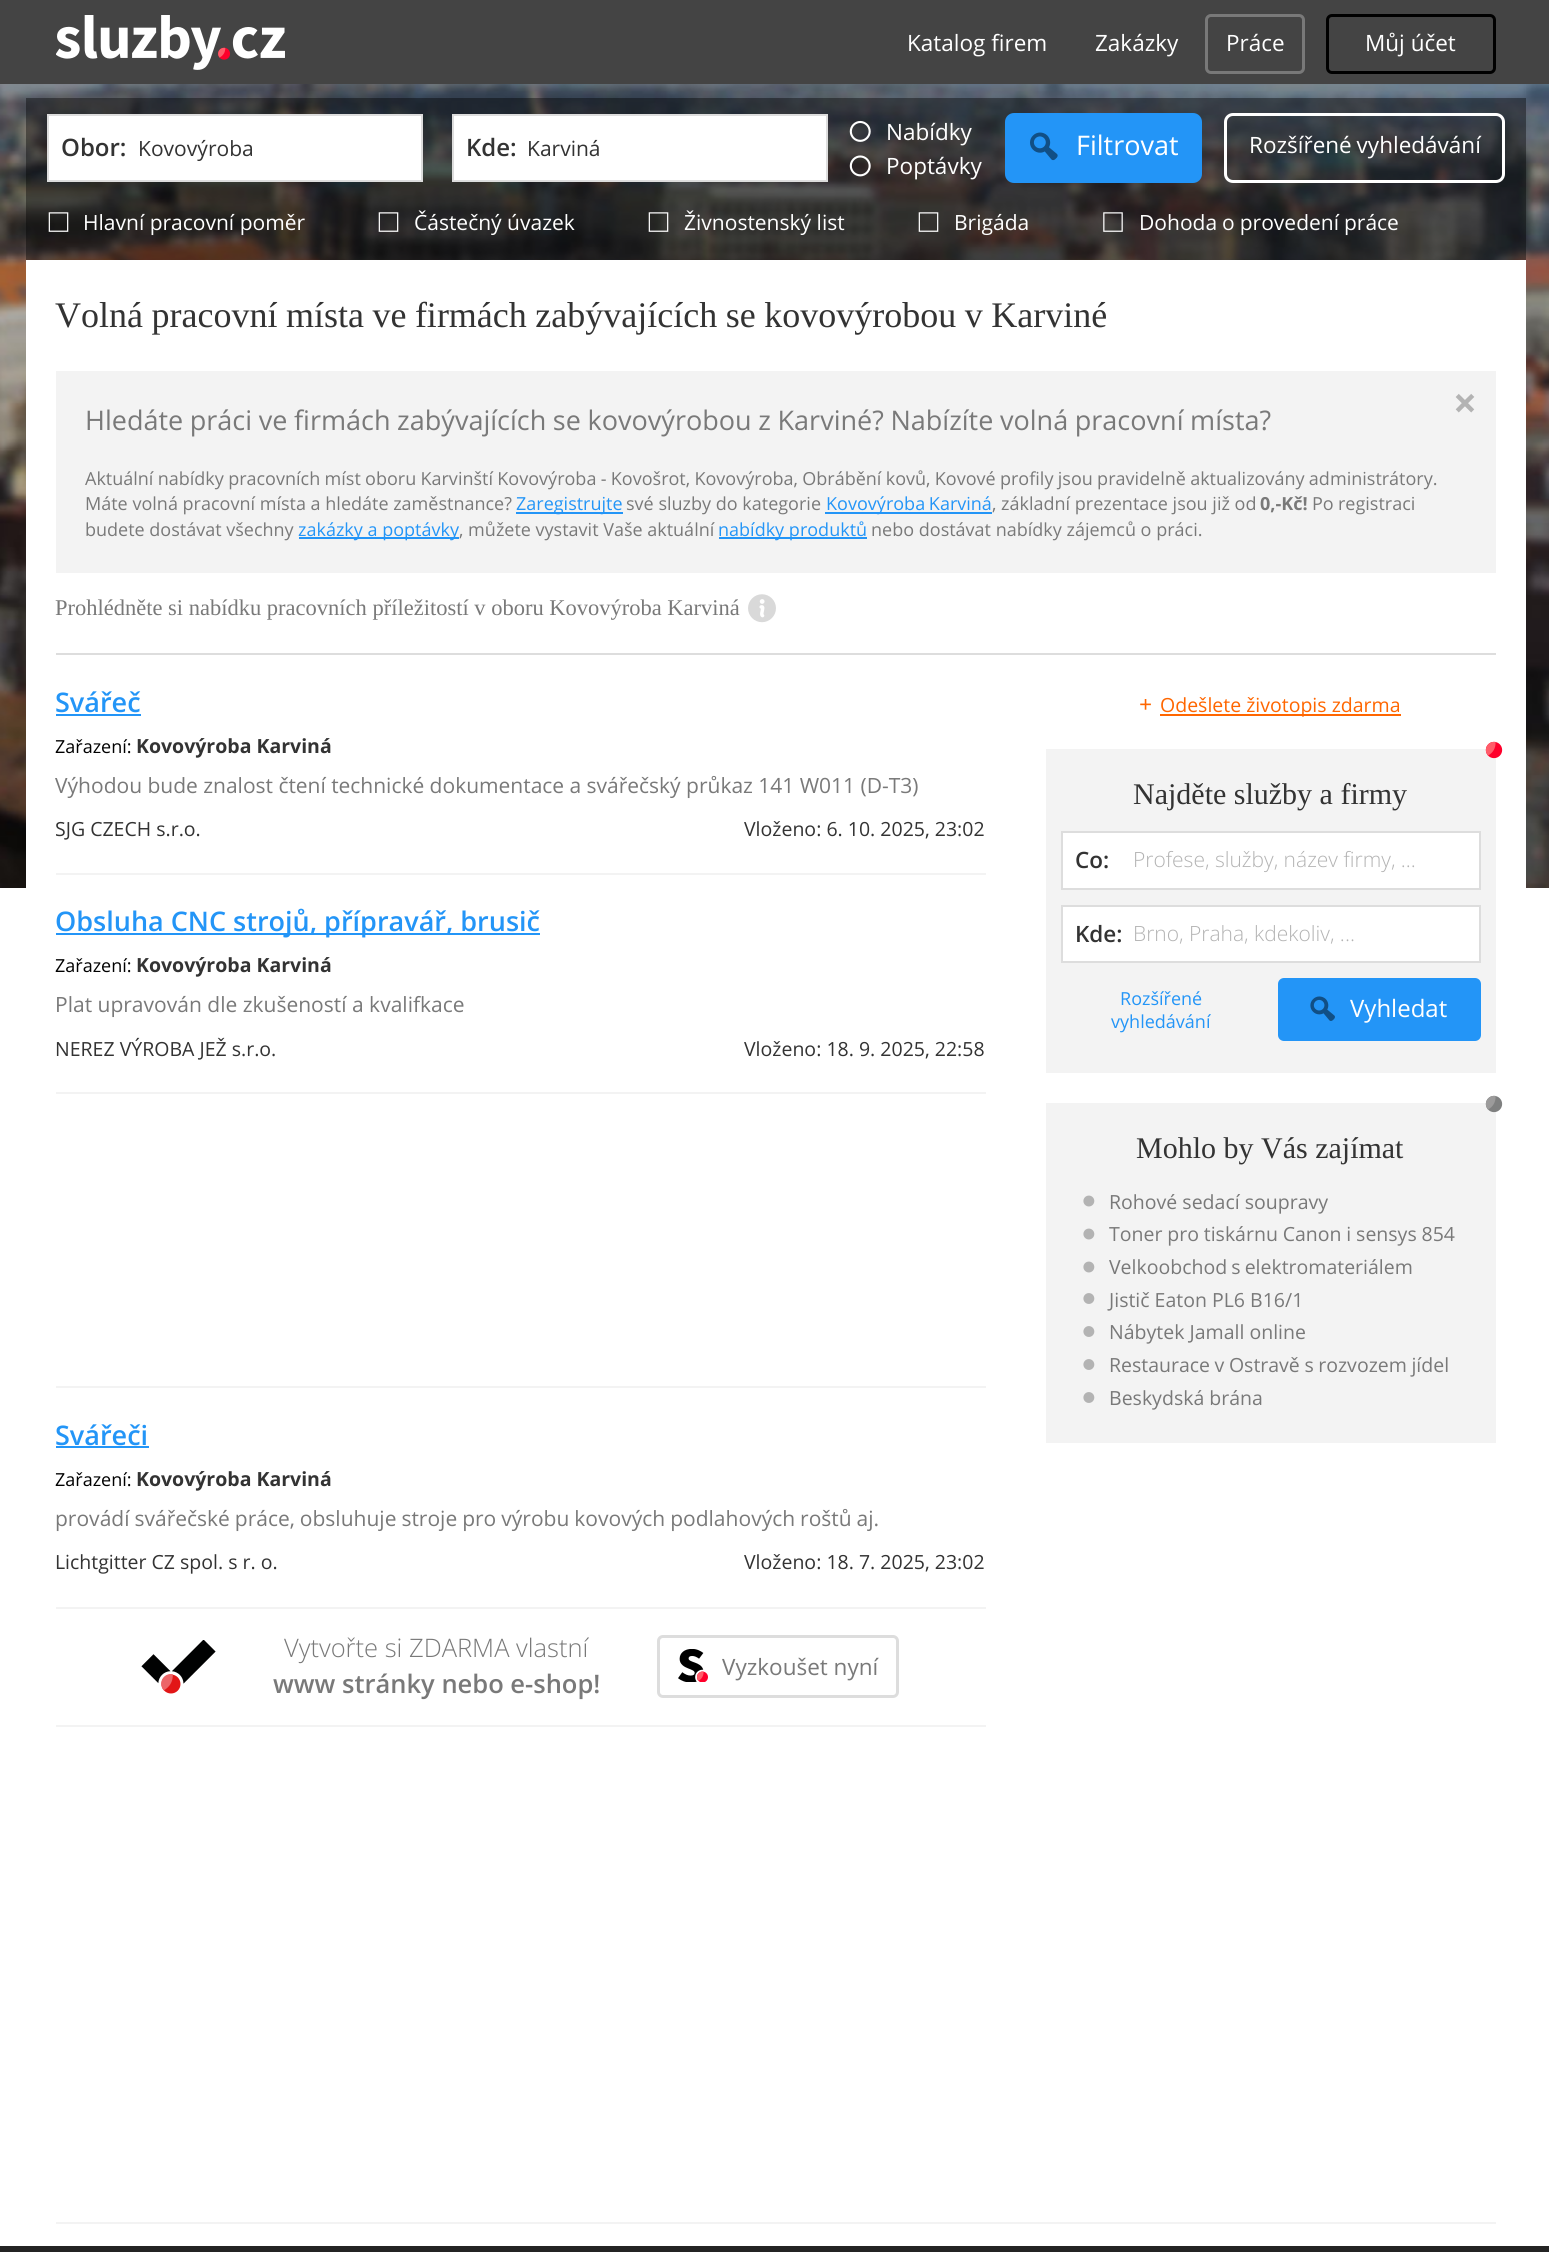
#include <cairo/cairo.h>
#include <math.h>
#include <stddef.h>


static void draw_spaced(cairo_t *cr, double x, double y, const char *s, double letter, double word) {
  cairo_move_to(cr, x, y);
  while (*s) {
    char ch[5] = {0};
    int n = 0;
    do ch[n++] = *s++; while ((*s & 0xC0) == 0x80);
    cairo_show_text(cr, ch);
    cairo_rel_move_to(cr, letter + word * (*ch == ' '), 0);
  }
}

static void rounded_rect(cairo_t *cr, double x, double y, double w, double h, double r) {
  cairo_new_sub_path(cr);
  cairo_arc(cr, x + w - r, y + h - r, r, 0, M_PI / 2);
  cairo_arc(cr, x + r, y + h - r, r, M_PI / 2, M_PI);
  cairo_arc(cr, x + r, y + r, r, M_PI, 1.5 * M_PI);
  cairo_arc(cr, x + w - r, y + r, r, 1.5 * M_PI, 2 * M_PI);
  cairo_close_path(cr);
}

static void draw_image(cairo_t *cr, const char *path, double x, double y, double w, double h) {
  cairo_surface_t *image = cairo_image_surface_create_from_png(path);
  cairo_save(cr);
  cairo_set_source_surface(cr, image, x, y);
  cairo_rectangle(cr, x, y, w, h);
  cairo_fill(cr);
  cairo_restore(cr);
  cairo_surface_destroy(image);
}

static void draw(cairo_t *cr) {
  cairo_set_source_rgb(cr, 1, 1, 1);
  cairo_paint(cr);
  cairo_set_source_rgb(cr, 68 / 255.0, 68 / 255.0, 68 / 255.0);
  cairo_rectangle(cr, 0, 0, 1549, 84);
  cairo_fill(cr);
  draw_image(cr, "images/1.png", 56, 15, 229, 55);
  rounded_rect(cr, 1206.5, 15.5, 97, 57, 4.5);
  cairo_set_source_rgb(cr, 121 / 255.0, 121 / 255.0, 121 / 255.0);
  cairo_set_line_width(cr, 3);
  cairo_stroke(cr);
  rounded_rect(cr, 1327.5, 15.5, 167, 57, 4.5);
  cairo_set_source_rgb(cr, 0, 0, 0);
  cairo_stroke(cr);
  draw_image(cr, "images/2.png", 0, 84, 1549, 804);
  cairo_set_source_rgba(cr, 0, 0, 0, 0.4);
  cairo_rectangle(cr, 26, 98, 1500, 162);
  cairo_fill(cr);
  cairo_set_source_rgb(cr, 1, 1, 1);
  cairo_rectangle(cr, 48, 115, 374, 66);
  cairo_fill_preserve(cr);
  cairo_set_source_rgb(cr, 221 / 255.0, 221 / 255.0, 221 / 255.0);
  cairo_set_line_width(cr, 2);
  cairo_stroke(cr);
  cairo_set_source_rgb(cr, 1, 1, 1);
  cairo_rectangle(cr, 453, 115, 374, 66);
  cairo_fill_preserve(cr);
  cairo_set_source_rgb(cr, 221 / 255.0, 221 / 255.0, 221 / 255.0);
  cairo_stroke(cr);
  draw_image(cr, "images/3.png", 849, 120, 22, 22);
  draw_image(cr, "images/4.png", 849, 155, 22, 22);
  cairo_set_source_rgb(cr, 35 / 255.0, 149 / 255.0, 247 / 255.0);
  rounded_rect(cr, 1006.5, 114.5, 194, 67, 7.5);
  cairo_fill_preserve(cr);
  cairo_set_line_width(cr, 3);
  cairo_stroke(cr);
  draw_image(cr, "images/5.png", 1030, 132, 28, 29);
  rounded_rect(cr, 1225.5, 114.5, 278, 67, 7.5);
  cairo_set_source_rgb(cr, 1, 1, 1);
  cairo_stroke(cr);
  draw_image(cr, "images/6.png", 48, 212, 21, 20);
  draw_image(cr, "images/7.png", 378, 212, 21, 20);
  draw_image(cr, "images/8.png", 648, 212, 21, 20);
  draw_image(cr, "images/9.png", 918, 212, 21, 20);
  draw_image(cr, "images/10.png", 1103, 212, 20, 20);
  cairo_rectangle(cr, 26, 260, 1500, 628);
  cairo_fill(cr);
  cairo_set_source_rgb(cr, 221 / 255.0, 221 / 255.0, 221 / 255.0);
  cairo_rectangle(cr, 56, 653, 1440, 2);
  cairo_fill(cr);
  cairo_set_source_rgb(cr, 243 / 255.0, 243 / 255.0, 243 / 255.0);
  cairo_rectangle(cr, 56, 371, 1440, 202);
  cairo_fill(cr);
  cairo_set_source_rgb(cr, 35 / 255.0, 149 / 255.0, 247 / 255.0);
  cairo_rectangle(cr, 516, 512, 107, 2);
  cairo_fill(cr);
  cairo_rectangle(cr, 825, 512, 167, 2);
  cairo_fill(cr);
  cairo_rectangle(cr, 299, 537, 160, 2);
  cairo_fill(cr);
  cairo_rectangle(cr, 719, 537, 148, 2);
  cairo_fill(cr);
  draw_image(cr, "images/11.png", 748, 594, 28, 29);
  cairo_set_source_rgb(cr, 243 / 255.0, 243 / 255.0, 243 / 255.0);
  cairo_rectangle(cr, 56, 873, 930, 2);
  cairo_fill(cr);
  cairo_set_source_rgb(cr, 35 / 255.0, 149 / 255.0, 247 / 255.0);
  cairo_rectangle(cr, 56, 714, 85, 2);
  cairo_fill(cr);
  cairo_set_source_rgb(cr, 243 / 255.0, 243 / 255.0, 243 / 255.0);
  cairo_rectangle(cr, 56, 1092, 930, 2);
  cairo_fill(cr);
  cairo_set_source_rgb(cr, 35 / 255.0, 149 / 255.0, 247 / 255.0);
  cairo_rectangle(cr, 56, 933, 484, 2);
  cairo_fill(cr);
  cairo_set_source_rgb(cr, 243 / 255.0, 243 / 255.0, 243 / 255.0);
  cairo_rectangle(cr, 56, 1386, 930, 2);
  cairo_fill(cr);
  cairo_rectangle(cr, 56, 1607, 930, 2);
  cairo_fill(cr);
  cairo_set_source_rgb(cr, 35 / 255.0, 149 / 255.0, 247 / 255.0);
  cairo_rectangle(cr, 56, 1446, 93, 2);
  cairo_fill(cr);
  cairo_set_source_rgb(cr, 243 / 255.0, 243 / 255.0, 243 / 255.0);
  cairo_rectangle(cr, 56, 1725, 930, 2);
  cairo_fill(cr);
  draw_image(cr, "images/12.png", 141, 1640, 75, 54);
  rounded_rect(cr, 658.5, 1636.5, 239, 60, 4.5);
  cairo_set_source_rgb(cr, 221 / 255.0, 221 / 255.0, 221 / 255.0);
  cairo_stroke(cr);
  draw_image(cr, "images/13.png", 678, 1649, 30, 33);
  cairo_set_source_rgb(cr, 1, 102 / 255.0, 0);
  cairo_rectangle(cr, 1160, 714, 241, 2);
  cairo_fill(cr);
  cairo_set_source_rgb(cr, 243 / 255.0, 243 / 255.0, 243 / 255.0);
  cairo_rectangle(cr, 1046, 749, 450, 324);
  cairo_fill(cr);
  draw_image(cr, "images/14.png", 1485, 741, 18, 18);
  cairo_set_source_rgb(cr, 1, 1, 1);
  cairo_rectangle(cr, 1062, 832, 418, 57);
  cairo_fill_preserve(cr);
  cairo_set_source_rgb(cr, 221 / 255.0, 221 / 255.0, 221 / 255.0);
  cairo_set_line_width(cr, 2);
  cairo_stroke(cr);
  cairo_set_source_rgb(cr, 1, 1, 1);
  cairo_rectangle(cr, 1062, 906, 418, 56);
  cairo_fill_preserve(cr);
  cairo_set_source_rgb(cr, 221 / 255.0, 221 / 255.0, 221 / 255.0);
  cairo_stroke(cr);
  cairo_set_source_rgb(cr, 35 / 255.0, 149 / 255.0, 247 / 255.0);
  rounded_rect(cr, 1279.5, 979.5, 200, 60, 4.5);
  cairo_fill_preserve(cr);
  cairo_set_line_width(cr, 3);
  cairo_stroke(cr);
  draw_image(cr, "images/15.png", 1310, 996, 25, 25);
  cairo_set_source_rgb(cr, 243 / 255.0, 243 / 255.0, 243 / 255.0);
  cairo_rectangle(cr, 1046, 1103, 450, 340);
  cairo_fill(cr);
  draw_image(cr, "images/16.png", 1485, 1095, 18, 18);
  draw_image(cr, "images/17.png", 1083, 1195, 12, 12);
  draw_image(cr, "images/17.png", 1083, 1228, 12, 12);
  draw_image(cr, "images/17.png", 1083, 1261, 12, 12);
  draw_image(cr, "images/18.png", 1083, 1293, 12, 11);
  draw_image(cr, "images/18.png", 1083, 1326, 12, 11);
  draw_image(cr, "images/18.png", 1083, 1359, 12, 11);
  draw_image(cr, "images/18.png", 1083, 1392, 12, 11);
  cairo_rectangle(cr, 56, 2222, 1440, 2);
  cairo_fill(cr);
  cairo_set_source_rgb(cr, 36 / 255.0, 36 / 255.0, 36 / 255.0);
  cairo_rectangle(cr, 0, 2246, 1549, 6);
  cairo_fill(cr);
  cairo_select_font_face(cr, "Open Sans", CAIRO_FONT_SLANT_NORMAL, CAIRO_FONT_WEIGHT_NORMAL);
  cairo_set_font_size(cr, 22.5);
  cairo_set_source_rgb(cr, 1, 1, 1);
  cairo_move_to(cr, 907, 51);
  cairo_show_text(cr, "Katalog firem");
  cairo_move_to(cr, 1095, 51);
  cairo_show_text(cr, "Zakázky");
  cairo_move_to(cr, 1226, 51);
  cairo_show_text(cr, "Práce");
  cairo_move_to(cr, 1365, 51);
  cairo_show_text(cr, "Můj účet");
  cairo_select_font_face(cr, "Open Sans SemiBold", CAIRO_FONT_SLANT_NORMAL, CAIRO_FONT_WEIGHT_NORMAL);
  cairo_set_font_size(cr, 24);
  cairo_set_source_rgb(cr, 51 / 255.0, 51 / 255.0, 51 / 255.0);
  cairo_move_to(cr, 61, 156);
  cairo_show_text(cr, "Obor:");
  cairo_select_font_face(cr, "Open Sans", CAIRO_FONT_SLANT_NORMAL, CAIRO_FONT_WEIGHT_NORMAL);
  cairo_set_font_size(cr, 21);
  cairo_move_to(cr, 138, 156);
  cairo_show_text(cr, "Kovovýroba");
  cairo_select_font_face(cr, "Open Sans SemiBold", CAIRO_FONT_SLANT_NORMAL, CAIRO_FONT_WEIGHT_NORMAL);
  cairo_set_font_size(cr, 24);
  cairo_move_to(cr, 466, 156);
  cairo_show_text(cr, "Kde:");
  cairo_select_font_face(cr, "Open Sans", CAIRO_FONT_SLANT_NORMAL, CAIRO_FONT_WEIGHT_NORMAL);
  cairo_set_font_size(cr, 21);
  cairo_move_to(cr, 527, 156);
  cairo_show_text(cr, "Karviná");
  cairo_set_font_size(cr, 22.5);
  cairo_set_source_rgb(cr, 1, 1, 1);
  cairo_move_to(cr, 886, 140);
  cairo_show_text(cr, "Nabídky");
  cairo_move_to(cr, 886, 174);
  cairo_show_text(cr, "Poptávky");
  cairo_set_font_size(cr, 27);
  cairo_move_to(cr, 1076, 155);
  cairo_show_text(cr, "Filtrovat");
  cairo_set_font_size(cr, 22.5);
  draw_spaced(cr, 1249, 153, "Rozšířené vyhledávání", 0, -1);
  cairo_set_font_size(cr, 21);
  cairo_move_to(cr, 83, 230);
  cairo_show_text(cr, "Hlavní pracovní poměr");
  cairo_move_to(cr, 414, 230);
  cairo_show_text(cr, "Částečný úvazek");
  cairo_move_to(cr, 684, 230);
  cairo_show_text(cr, "Živnostenský list");
  cairo_move_to(cr, 954, 230);
  cairo_show_text(cr, "Brigáda");
  draw_spaced(cr, 1139, 230, "Dohoda o provedení práce", 0, -0.5);
  cairo_select_font_face(cr, "Liberation Serif", CAIRO_FONT_SLANT_NORMAL, CAIRO_FONT_WEIGHT_NORMAL);
  cairo_set_font_size(cr, 36);
  cairo_set_source_rgb(cr, 51 / 255.0, 51 / 255.0, 51 / 255.0);
  draw_spaced(cr, 55, 327, "Volná pracovní místa ve firmách zabývajících se kovovýrobou v Karviné", 0, -0.5);
  cairo_select_font_face(cr, "Open Sans", CAIRO_FONT_SLANT_NORMAL, CAIRO_FONT_WEIGHT_BOLD);
  cairo_set_font_size(cr, 42);
  cairo_set_source_rgb(cr, 179 / 255.0, 179 / 255.0, 179 / 255.0);
  cairo_move_to(cr, 1453, 418);
  cairo_show_text(cr, "×");
  cairo_select_font_face(cr, "Open Sans", CAIRO_FONT_SLANT_NORMAL, CAIRO_FONT_WEIGHT_NORMAL);
  cairo_set_font_size(cr, 27);
  cairo_set_source_rgb(cr, 121 / 255.0, 121 / 255.0, 121 / 255.0);
  draw_spaced(cr, 85, 430, "Hledáte práci ve firmách zabývajících se kovovýrobou z Karviné? Nabízíte volná pracovní místa?", 0, -0.4);
  cairo_set_font_size(cr, 18);
  draw_spaced(cr, 85, 485, "Aktuální nabídky pracovních míst oboru Karvinští Kovovýroba - Kovošrot, Kovovýroba, Obrábění kovů, Kovové profily jsou pravidelně aktualizovány administrátory.", 0, -0.4);
  cairo_move_to(cr, 85, 510);
  cairo_show_text(cr, "Máte volná pracovní místa a hledáte zaměstnance?");
  cairo_set_source_rgb(cr, 35 / 255.0, 149 / 255.0, 247 / 255.0);
  cairo_move_to(cr, 516, 510);
  cairo_show_text(cr, "Zaregistrujte");
  cairo_set_source_rgb(cr, 121 / 255.0, 121 / 255.0, 121 / 255.0);
  cairo_move_to(cr, 626, 510);
  cairo_show_text(cr, "své sluzby do kategorie");
  cairo_set_source_rgb(cr, 35 / 255.0, 149 / 255.0, 247 / 255.0);
  draw_spaced(cr, 826, 510, "Kovovýroba Karviná", 0, -1);
  cairo_set_source_rgb(cr, 121 / 255.0, 121 / 255.0, 121 / 255.0);
  cairo_move_to(cr, 992, 510);
  cairo_show_text(cr, ", základní prezentace jsou již od");
  cairo_select_font_face(cr, "Open Sans", CAIRO_FONT_SLANT_NORMAL, CAIRO_FONT_WEIGHT_BOLD);
  cairo_move_to(cr, 1260, 510);
  cairo_show_text(cr, "0,-Kč!");
  cairo_select_font_face(cr, "Open Sans", CAIRO_FONT_SLANT_NORMAL, CAIRO_FONT_WEIGHT_NORMAL);
  draw_spaced(cr, 1312, 510, "Po registraci", 0, -0.4);
  cairo_move_to(cr, 85, 536);
  cairo_show_text(cr, "budete dostávat všechny");
  cairo_set_source_rgb(cr, 35 / 255.0, 149 / 255.0, 247 / 255.0);
  cairo_move_to(cr, 298, 536);
  cairo_show_text(cr, "zakázky a poptávky");
  cairo_set_source_rgb(cr, 121 / 255.0, 121 / 255.0, 121 / 255.0);
  cairo_move_to(cr, 459, 536);
  cairo_show_text(cr, ", můžete vystavit Vaše aktuální");
  cairo_set_source_rgb(cr, 35 / 255.0, 149 / 255.0, 247 / 255.0);
  cairo_move_to(cr, 718, 536);
  cairo_show_text(cr, "nabídky produktů");
  cairo_set_source_rgb(cr, 121 / 255.0, 121 / 255.0, 121 / 255.0);
  cairo_move_to(cr, 871, 536);
  cairo_show_text(cr, "nebo dostávat nabídky zájemců o práci.");
  cairo_select_font_face(cr, "Liberation Serif", CAIRO_FONT_SLANT_NORMAL, CAIRO_FONT_WEIGHT_NORMAL);
  cairo_set_font_size(cr, 22.5);
  cairo_move_to(cr, 55, 615);
  cairo_show_text(cr, "Prohlédněte si nabídku pracovních příležitostí v oboru Kovovýroba Karviná");
  cairo_select_font_face(cr, "Open Sans SemiBold", CAIRO_FONT_SLANT_NORMAL, CAIRO_FONT_WEIGHT_NORMAL);
  cairo_set_font_size(cr, 27);
  cairo_set_source_rgb(cr, 35 / 255.0, 149 / 255.0, 247 / 255.0);
  cairo_move_to(cr, 55, 712);
  cairo_show_text(cr, "Svářeč");
  cairo_select_font_face(cr, "Open Sans", CAIRO_FONT_SLANT_NORMAL, CAIRO_FONT_WEIGHT_NORMAL);
  cairo_set_font_size(cr, 18);
  cairo_set_source_rgb(cr, 0, 0, 0);
  cairo_move_to(cr, 55, 753);
  cairo_show_text(cr, "Zařazení:");
  cairo_select_font_face(cr, "Open Sans", CAIRO_FONT_SLANT_NORMAL, CAIRO_FONT_WEIGHT_BOLD);
  cairo_set_font_size(cr, 19.5);
  cairo_set_source_rgb(cr, 51 / 255.0, 51 / 255.0, 51 / 255.0);
  cairo_move_to(cr, 136, 753);
  cairo_show_text(cr, "Kovovýroba Karviná");
  cairo_select_font_face(cr, "Open Sans", CAIRO_FONT_SLANT_NORMAL, CAIRO_FONT_WEIGHT_NORMAL);
  cairo_set_font_size(cr, 21);
  cairo_set_source_rgb(cr, 121 / 255.0, 121 / 255.0, 121 / 255.0);
  draw_spaced(cr, 55, 793, "Výhodou bude znalost čtení technické dokumentace a svářečský průkaz 141 W011 (D-T3)", 0, -0.1);
  cairo_set_font_size(cr, 19.5);
  cairo_set_source_rgb(cr, 51 / 255.0, 51 / 255.0, 51 / 255.0);
  cairo_move_to(cr, 55, 836);
  cairo_show_text(cr, "SJG CZECH s.r.o.");
  cairo_move_to(cr, 744, 836);
  cairo_show_text(cr, "Vloženo: 6. 10. 2025, 23:02");
  cairo_select_font_face(cr, "Open Sans SemiBold", CAIRO_FONT_SLANT_NORMAL, CAIRO_FONT_WEIGHT_NORMAL);
  cairo_set_font_size(cr, 27);
  cairo_set_source_rgb(cr, 35 / 255.0, 149 / 255.0, 247 / 255.0);
  cairo_move_to(cr, 55, 931);
  cairo_show_text(cr, "Obsluha CNC strojů, přípravář, brusič");
  cairo_select_font_face(cr, "Open Sans", CAIRO_FONT_SLANT_NORMAL, CAIRO_FONT_WEIGHT_NORMAL);
  cairo_set_font_size(cr, 18);
  cairo_set_source_rgb(cr, 0, 0, 0);
  cairo_move_to(cr, 55, 972);
  cairo_show_text(cr, "Zařazení:");
  cairo_select_font_face(cr, "Open Sans", CAIRO_FONT_SLANT_NORMAL, CAIRO_FONT_WEIGHT_BOLD);
  cairo_set_font_size(cr, 19.5);
  cairo_set_source_rgb(cr, 51 / 255.0, 51 / 255.0, 51 / 255.0);
  cairo_move_to(cr, 136, 972);
  cairo_show_text(cr, "Kovovýroba Karviná");
  cairo_select_font_face(cr, "Open Sans", CAIRO_FONT_SLANT_NORMAL, CAIRO_FONT_WEIGHT_NORMAL);
  cairo_set_font_size(cr, 21);
  cairo_set_source_rgb(cr, 121 / 255.0, 121 / 255.0, 121 / 255.0);
  cairo_move_to(cr, 55, 1012);
  cairo_show_text(cr, "Plat upravován dle zkušeností a kvalifkace");
  cairo_set_font_size(cr, 19.5);
  cairo_set_source_rgb(cr, 51 / 255.0, 51 / 255.0, 51 / 255.0);
  cairo_move_to(cr, 55, 1056);
  cairo_show_text(cr, "NEREZ VÝROBA JEŽ s.r.o.");
  cairo_move_to(cr, 744, 1056);
  cairo_show_text(cr, "Vloženo: 18. 9. 2025, 22:58");
  cairo_select_font_face(cr, "Open Sans SemiBold", CAIRO_FONT_SLANT_NORMAL, CAIRO_FONT_WEIGHT_NORMAL);
  cairo_set_font_size(cr, 27);
  cairo_set_source_rgb(cr, 35 / 255.0, 149 / 255.0, 247 / 255.0);
  cairo_move_to(cr, 55, 1445);
  cairo_show_text(cr, "Svářeči");
  cairo_select_font_face(cr, "Open Sans", CAIRO_FONT_SLANT_NORMAL, CAIRO_FONT_WEIGHT_NORMAL);
  cairo_set_font_size(cr, 18);
  cairo_set_source_rgb(cr, 0, 0, 0);
  cairo_move_to(cr, 55, 1486);
  cairo_show_text(cr, "Zařazení:");
  cairo_select_font_face(cr, "Open Sans", CAIRO_FONT_SLANT_NORMAL, CAIRO_FONT_WEIGHT_BOLD);
  cairo_set_font_size(cr, 19.5);
  cairo_set_source_rgb(cr, 51 / 255.0, 51 / 255.0, 51 / 255.0);
  cairo_move_to(cr, 136, 1486);
  cairo_show_text(cr, "Kovovýroba Karviná");
  cairo_select_font_face(cr, "Open Sans", CAIRO_FONT_SLANT_NORMAL, CAIRO_FONT_WEIGHT_NORMAL);
  cairo_set_font_size(cr, 21);
  cairo_set_source_rgb(cr, 121 / 255.0, 121 / 255.0, 121 / 255.0);
  draw_spaced(cr, 55, 1526, "provádí svářečské práce, obsluhuje stroje pro výrobu kovových podlahových roštů aj.", 0, -0.5);
  cairo_set_font_size(cr, 19.5);
  cairo_set_source_rgb(cr, 51 / 255.0, 51 / 255.0, 51 / 255.0);
  cairo_move_to(cr, 55, 1569);
  cairo_show_text(cr, "Lichtgitter CZ spol. s r. o.");
  cairo_move_to(cr, 744, 1569);
  cairo_show_text(cr, "Vloženo: 18. 7. 2025, 23:02");
  cairo_select_font_face(cr, "Open Sans Light", CAIRO_FONT_SLANT_NORMAL, CAIRO_FONT_WEIGHT_NORMAL);
  cairo_set_font_size(cr, 25.5);
  cairo_set_source_rgb(cr, 121 / 255.0, 121 / 255.0, 121 / 255.0);
  cairo_move_to(cr, 284, 1657);
  cairo_show_text(cr, "Vytvořte si ZDARMA vlastní");
  cairo_select_font_face(cr, "Open Sans SemiBold", CAIRO_FONT_SLANT_NORMAL, CAIRO_FONT_WEIGHT_NORMAL);
  cairo_move_to(cr, 273, 1693);
  cairo_show_text(cr, "www stránky nebo e-shop!");
  cairo_select_font_face(cr, "Open Sans", CAIRO_FONT_SLANT_NORMAL, CAIRO_FONT_WEIGHT_NORMAL);
  cairo_set_font_size(cr, 22.5);
  cairo_move_to(cr, 722, 1675);
  cairo_show_text(cr, "Vyzkoušet nyní");
  cairo_select_font_face(cr, "Liberation Serif", CAIRO_FONT_SLANT_NORMAL, CAIRO_FONT_WEIGHT_BOLD);
  cairo_set_font_size(cr, 23);
  cairo_set_source_rgb(cr, 1, 102 / 255.0, 0);
  cairo_move_to(cr, 1139, 712);
  cairo_show_text(cr, "+");
  cairo_select_font_face(cr, "Open Sans", CAIRO_FONT_SLANT_NORMAL, CAIRO_FONT_WEIGHT_NORMAL);
  cairo_set_font_size(cr, 19.5);
  cairo_move_to(cr, 1160, 712);
  cairo_show_text(cr, "Odešlete životopis zdarma");
  cairo_select_font_face(cr, "Liberation Serif", CAIRO_FONT_SLANT_NORMAL, CAIRO_FONT_WEIGHT_NORMAL);
  cairo_set_font_size(cr, 30);
  cairo_set_source_rgb(cr, 51 / 255.0, 51 / 255.0, 51 / 255.0);
  cairo_move_to(cr, 1133, 804);
  cairo_show_text(cr, "Najděte služby a firmy");
  cairo_select_font_face(cr, "Open Sans SemiBold", CAIRO_FONT_SLANT_NORMAL, CAIRO_FONT_WEIGHT_NORMAL);
  cairo_set_font_size(cr, 22.5);
  cairo_move_to(cr, 1075, 868);
  cairo_show_text(cr, "Co:");
  cairo_select_font_face(cr, "Open Sans Light", CAIRO_FONT_SLANT_NORMAL, CAIRO_FONT_WEIGHT_NORMAL);
  cairo_set_font_size(cr, 21);
  cairo_set_source_rgb(cr, 179 / 255.0, 179 / 255.0, 179 / 255.0);
  cairo_move_to(cr, 1133, 867);
  cairo_show_text(cr, "Profese, služby, název firmy, ...");
  cairo_select_font_face(cr, "Open Sans SemiBold", CAIRO_FONT_SLANT_NORMAL, CAIRO_FONT_WEIGHT_NORMAL);
  cairo_set_font_size(cr, 22.5);
  cairo_set_source_rgb(cr, 51 / 255.0, 51 / 255.0, 51 / 255.0);
  cairo_move_to(cr, 1075, 942);
  cairo_show_text(cr, "Kde:");
  cairo_select_font_face(cr, "Open Sans Light", CAIRO_FONT_SLANT_NORMAL, CAIRO_FONT_WEIGHT_NORMAL);
  cairo_set_font_size(cr, 21);
  cairo_set_source_rgb(cr, 179 / 255.0, 179 / 255.0, 179 / 255.0);
  cairo_move_to(cr, 1133, 941);
  cairo_show_text(cr, "Brno, Praha, kdekoliv, ...");
  cairo_select_font_face(cr, "Open Sans", CAIRO_FONT_SLANT_NORMAL, CAIRO_FONT_WEIGHT_NORMAL);
  cairo_set_font_size(cr, 18);
  cairo_set_source_rgb(cr, 35 / 255.0, 149 / 255.0, 247 / 255.0);
  cairo_move_to(cr, 1120, 1005);
  cairo_show_text(cr, "Rozšířené");
  cairo_move_to(cr, 1111, 1028);
  cairo_show_text(cr, "vyhledávání");
  cairo_set_font_size(cr, 24);
  cairo_set_source_rgb(cr, 1, 1, 1);
  cairo_move_to(cr, 1350, 1017);
  cairo_show_text(cr, "Vyhledat");
  cairo_select_font_face(cr, "Liberation Serif", CAIRO_FONT_SLANT_NORMAL, CAIRO_FONT_WEIGHT_NORMAL);
  cairo_set_font_size(cr, 30);
  cairo_set_source_rgb(cr, 51 / 255.0, 51 / 255.0, 51 / 255.0);
  cairo_move_to(cr, 1136, 1158);
  cairo_show_text(cr, "Mohlo by Vás zajímat");
  cairo_select_font_face(cr, "Open Sans", CAIRO_FONT_SLANT_NORMAL, CAIRO_FONT_WEIGHT_NORMAL);
  cairo_set_font_size(cr, 19.5);
  cairo_set_source_rgb(cr, 121 / 255.0, 121 / 255.0, 121 / 255.0);
  cairo_move_to(cr, 1109, 1209);
  cairo_show_text(cr, "Rohové sedací soupravy");
  draw_spaced(cr, 1109, 1241, "Toner pro tiskárnu Canon i sensys 854", 0, -0.25);
  draw_spaced(cr, 1109, 1274, "Velkoobchod s elektromateriálem", 0, -1);
  cairo_move_to(cr, 1109, 1307);
  cairo_show_text(cr, "Jistič Eaton PL6 B16/1");
  cairo_move_to(cr, 1109, 1339);
  cairo_show_text(cr, "Nábytek Jamall online");
  draw_spaced(cr, 1109, 1372, "Restaurace v Ostravě s rozvozem jídel", 0, -0.5);
  cairo_move_to(cr, 1109, 1405);
  cairo_show_text(cr, "Beskydská brána");
}

int main(void) {
  cairo_surface_t *surface = cairo_image_surface_create(CAIRO_FORMAT_RGB24, 1549, 2252);
  cairo_t *cr = cairo_create(surface);
  cairo_font_options_t *options = cairo_font_options_create();
  cairo_font_options_set_hint_metrics(options, CAIRO_HINT_METRICS_OFF);
  cairo_font_options_set_hint_style(options, CAIRO_HINT_STYLE_NONE);
  cairo_set_font_options(cr, options);
  cairo_set_miter_limit(cr, 4);
  draw(cr);
  cairo_surface_write_to_png(surface, "out.png");
  cairo_font_options_destroy(options);
  cairo_destroy(cr);
  cairo_surface_destroy(surface);
  return 0;
}
